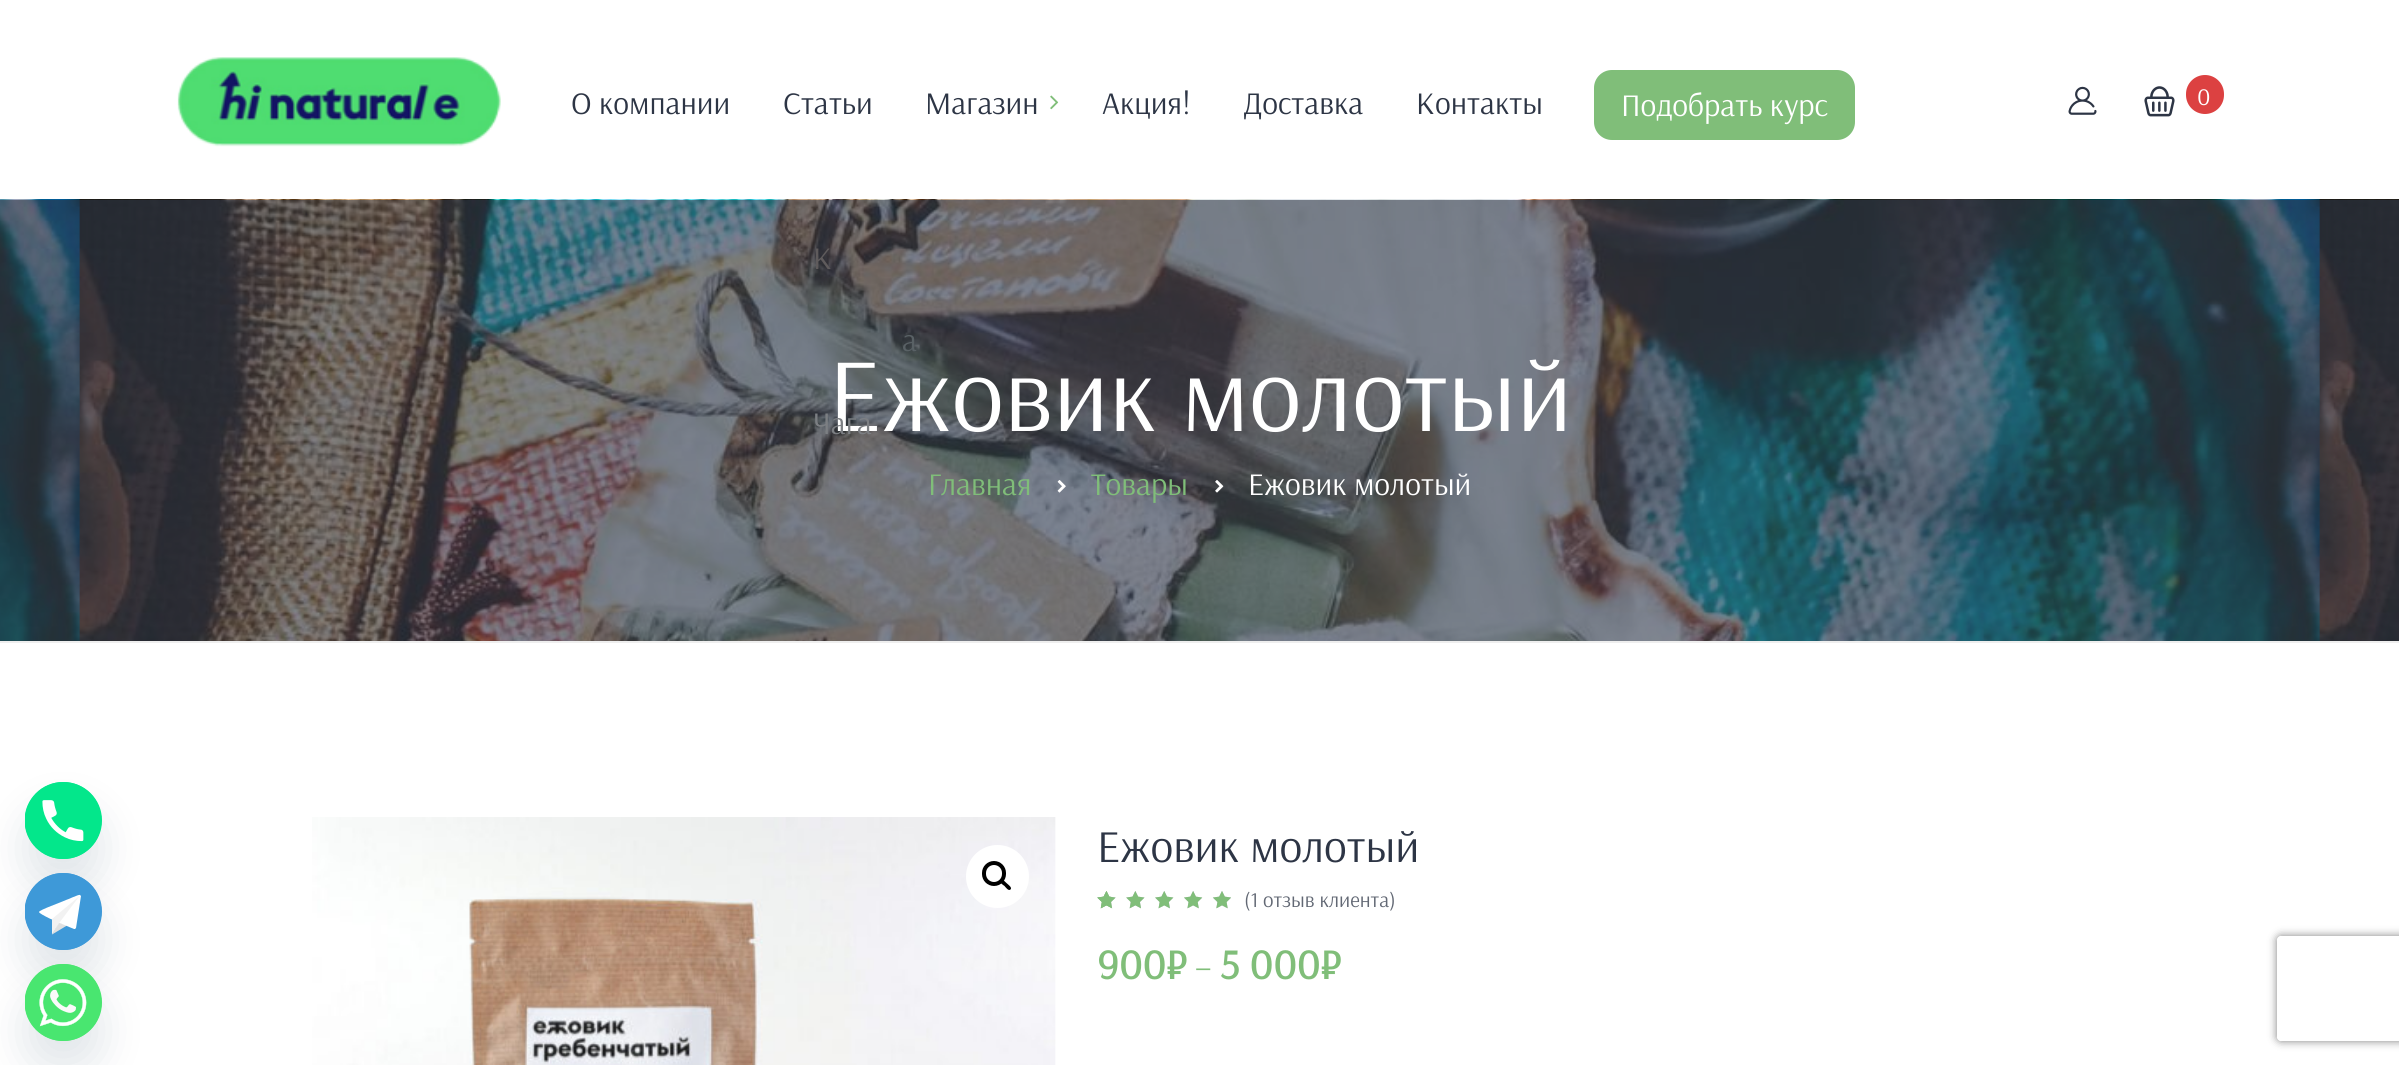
#include <cairo/cairo.h>
#include <math.h>
#include <stddef.h>


static void rounded_rect(cairo_t *cr, double x, double y, double w, double h, double r) {
  cairo_new_sub_path(cr);
  cairo_arc(cr, x + w - r, y + h - r, r, 0, M_PI / 2);
  cairo_arc(cr, x + r, y + h - r, r, M_PI / 2, M_PI);
  cairo_arc(cr, x + r, y + r, r, M_PI, 1.5 * M_PI);
  cairo_arc(cr, x + w - r, y + r, r, 1.5 * M_PI, 2 * M_PI);
  cairo_close_path(cr);
}

static void draw_shadow(cairo_t *cr, double x, double y, double w, double h, double r, double blur, double alpha) {
  cairo_push_group_with_content(cr, CAIRO_CONTENT_ALPHA);
  cairo_set_operator(cr, CAIRO_OPERATOR_SOURCE);
  for (int i = 15; i >= -15 && fmin(w, h) + blur * i / 3 > 0; i -= 2) {
    double e = blur * i / 6;
    cairo_set_source_rgba(cr, 0, 0, 0, alpha * erfc((i - 1) / 8.5) / 2);
    rounded_rect(cr, x - e, y - e, w + 2 * e, h + 2 * e, fmax(0, fmin(r + e + blur * .6, fmin(w, h) / 2 + e)));
    cairo_fill(cr);
  }
  cairo_pattern_t *soft = cairo_pop_group(cr);
  cairo_mask(cr, soft);
  cairo_pattern_destroy(soft);
}

static void draw_image(cairo_t *cr, const char *path, double x, double y, double w, double h) {
  cairo_surface_t *image = cairo_image_surface_create_from_png(path);
  cairo_save(cr);
  cairo_set_source_surface(cr, image, x, y);
  cairo_rectangle(cr, x, y, w, h);
  cairo_fill(cr);
  cairo_restore(cr);
  cairo_surface_destroy(image);
}

static void draw(cairo_t *cr) {
  cairo_set_source_rgb(cr, 1, 1, 1);
  cairo_paint(cr);
  cairo_set_source_rgb(cr, 128 / 255.0, 190 / 255.0, 121 / 255.0);
  rounded_rect(cr, 1594, 70, 261, 70, 18);
  cairo_fill(cr);
  draw_image(cr, "images/1.png", 1050, 95, 9, 15);
  draw_image(cr, "images/2.png", 177, 57, 324, 90);
  draw_image(cr, "images/3.png", 2068, 86, 29, 29);
  draw_image(cr, "images/4.png", 2144, 86, 31, 31);
  cairo_set_source_rgb(cr, 220 / 255.0, 65 / 255.0, 65 / 255.0);
  rounded_rect(cr, 2186, 75, 38, 39, 19);
  cairo_fill(cr);
  draw_image(cr, "images/5.png", 0, 199, 2399, 442);
  cairo_set_source_rgb(cr, 238 / 255.0, 238 / 255.0, 238 / 255.0);
  cairo_rectangle(cr, 0, 641, 2399, 2);
  cairo_fill(cr);
  draw_image(cr, "images/6.png", 1057, 480, 9, 13);
  draw_image(cr, "images/7.png", 1215, 480, 9, 13);
  cairo_set_source_rgb(cr, 73 / 255.0, 104 / 255.0, 126 / 255.0);
  draw_shadow(cr, 25, 810, 77, 77, 38.5, 21, 0.16);
  cairo_set_source_rgb(cr, 3 / 255.0, 231 / 255.0, 139 / 255.0);
  cairo_arc(cr, 63.5, 820.5, 38.5, 0, 2 * M_PI);
  cairo_fill(cr);
  draw_image(cr, "images/8.png", 25, 782, 77, 77);
  cairo_set_source_rgb(cr, 73 / 255.0, 104 / 255.0, 126 / 255.0);
  draw_shadow(cr, 25, 901, 77, 77, 38.5, 21, 0.16);
  cairo_set_source_rgb(cr, 62 / 255.0, 153 / 255.0, 216 / 255.0);
  cairo_arc(cr, 63.5, 911.5, 38.5, 0, 2 * M_PI);
  cairo_fill(cr);
  cairo_save(cr);
  cairo_rectangle(cr, 25, 873, 77, 77);
  cairo_clip(cr);
  cairo_arc(cr, 63, 911.5, 38.5, 0, 2 * M_PI);
  cairo_fill(cr);
  cairo_restore(cr);
  cairo_set_source_rgb(cr, 224 / 255.0, 224 / 255.0, 224 / 255.0);
  cairo_new_path(cr);
  cairo_move_to(cr, 59, 922);
  cairo_line_to(cr, 52, 934.5);
  cairo_line_to(cr, 67, 925.5);
  cairo_close_path(cr);
  cairo_fill(cr);
  cairo_set_source_rgb(cr, 1, 1, 1);
  cairo_new_path(cr);
  cairo_move_to(cr, 80, 895);
  cairo_curve_to(cr, 79, 894, 67, 900, 66, 900);
  cairo_curve_to(cr, 62, 902, 39, 910, 39, 912);
  cairo_curve_to(cr, 39, 914, 59, 923, 62, 924);
  cairo_line_to(cr, 74, 929);
  cairo_line_to(cr, 75, 929);
  cairo_line_to(cr, 76, 928);
  cairo_line_to(cr, 81, 896);
  cairo_close_path(cr);
  cairo_fill(cr);
  cairo_set_source_rgb(cr, 242 / 255.0, 242 / 255.0, 242 / 255.0);
  cairo_new_path(cr);
  cairo_move_to(cr, 79.5, 896);
  cairo_line_to(cr, 52, 919);
  cairo_line_to(cr, 52, 934.5);
  cairo_line_to(cr, 59.5, 922.5);
  cairo_close_path(cr);
  cairo_fill(cr);
  cairo_set_source_rgb(cr, 73 / 255.0, 104 / 255.0, 126 / 255.0);
  draw_shadow(cr, 25, 992, 77, 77, 38.5, 21, 0.16);
  cairo_set_source_rgb(cr, 73 / 255.0, 230 / 255.0, 112 / 255.0);
  cairo_arc(cr, 63.5, 1002.5, 38.5, 0, 2 * M_PI);
  cairo_fill(cr);
  draw_image(cr, "images/9.png", 25, 964, 77, 77);
  draw_image(cr, "images/10.png", 312, 817, 744, 248);
  cairo_set_source_rgb(cr, 1, 1, 1);
  cairo_arc(cr, 997.5, 876.5, 31.5, 0, 2 * M_PI);
  cairo_fill(cr);
  rounded_rect(cr, 984, 863, 20, 21, 10);
  cairo_set_source_rgb(cr, 0, 0, 0);
  cairo_set_line_width(cr, 4);
  cairo_stroke(cr);
  cairo_new_path(cr);
  cairo_move_to(cr, 1000.5, 880);
  cairo_curve_to(cr, 1002.5, 878, 1005.5, 882.5, 1007, 883.5);
  cairo_curve_to(cr, 1008, 884.5, 1012.5, 887.5, 1010.5, 889.5);
  cairo_curve_to(cr, 1008.5, 891.5, 1005.5, 887, 1004.5, 886);
  cairo_curve_to(cr, 1003, 885, 998.5, 882, 1000.5, 880);
  cairo_close_path(cr);
  cairo_fill(cr);
  draw_image(cr, "images/11.png", 1097, 891, 134, 18);
  draw_image(cr, "images/12.png", 1097, 891, 134, 18);
  draw_image(cr, "images/13.png", 1097, 891, 14, 18);
  cairo_save(cr);
  cairo_set_fill_rule(cr, CAIRO_FILL_RULE_EVEN_ODD);
  cairo_new_path(cr);
  cairo_move_to(cr, 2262, 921);
  cairo_line_to(cr, 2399, 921);
  cairo_line_to(cr, 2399, 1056);
  cairo_line_to(cr, 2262, 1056);
  cairo_close_path(cr);
  cairo_move_to(cr, 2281, 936);
  cairo_line_to(cr, 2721, 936);
  cairo_curve_to(cr, 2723, 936, 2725, 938, 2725, 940);
  cairo_line_to(cr, 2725, 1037);
  cairo_curve_to(cr, 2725, 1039, 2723, 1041, 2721, 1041);
  cairo_line_to(cr, 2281, 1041);
  cairo_curve_to(cr, 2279, 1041, 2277, 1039, 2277, 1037);
  cairo_line_to(cr, 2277, 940);
  cairo_curve_to(cr, 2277, 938, 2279, 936, 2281, 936);
  cairo_close_path(cr);
  cairo_clip(cr);
  cairo_set_source_rgb(cr, 128 / 255.0, 128 / 255.0, 128 / 255.0);
  draw_shadow(cr, 2277, 936, 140, 105, 4, 4.5, 1);
  cairo_restore(cr);
  cairo_select_font_face(cr, "Arsenal", CAIRO_FONT_SLANT_NORMAL, CAIRO_FONT_WEIGHT_NORMAL);
  cairo_set_font_size(cr, 31.5);
  cairo_set_source_rgb(cr, 45 / 255.0, 53 / 255.0, 69 / 255.0);
  cairo_move_to(cr, 571, 114);
  cairo_show_text(cr, "О компании");
  cairo_move_to(cr, 783, 114);
  cairo_show_text(cr, "Статьи");
  cairo_move_to(cr, 1102, 114);
  cairo_show_text(cr, "Акция!");
  cairo_set_source_rgb(cr, 1, 1, 1);
  cairo_move_to(cr, 1621, 116);
  cairo_show_text(cr, "Подобрать курс");
  cairo_set_source_rgb(cr, 45 / 255.0, 53 / 255.0, 69 / 255.0);
  cairo_move_to(cr, 925, 114);
  cairo_show_text(cr, "Магазин");
  cairo_set_source_rgb(cr, 95 / 255.0, 91 / 255.0, 92 / 255.0);
  cairo_move_to(cr, 813, 269);
  cairo_show_text(cr, "К");
  cairo_set_source_rgb(cr, 89 / 255.0, 97 / 255.0, 101 / 255.0);
  cairo_move_to(cr, 902, 351);
  cairo_show_text(cr, "а");
  cairo_set_source_rgb(cr, 45 / 255.0, 53 / 255.0, 69 / 255.0);
  cairo_move_to(cr, 1243, 114);
  cairo_show_text(cr, "Доставка");
  cairo_move_to(cr, 1416, 114);
  cairo_show_text(cr, "Контакты");
  cairo_set_font_size(cr, 24);
  cairo_set_source_rgb(cr, 1, 1, 1);
  cairo_move_to(cr, 2197, 105);
  cairo_show_text(cr, "0");
  cairo_set_font_size(cr, 105);
  cairo_move_to(cr, 828, 431);
  cairo_show_text(cr, "Ежовик молотый");
  cairo_set_font_size(cr, 31.5);
  cairo_set_source_rgb(cr, 124 / 255.0, 127 / 255.0, 131 / 255.0);
  cairo_move_to(cr, 813, 434);
  cairo_show_text(cr, "Чага");
  cairo_set_source_rgb(cr, 128 / 255.0, 190 / 255.0, 121 / 255.0);
  cairo_move_to(cr, 928, 495);
  cairo_show_text(cr, "Главная");
  cairo_move_to(cr, 1091, 495);
  cairo_show_text(cr, "Товары");
  cairo_set_source_rgb(cr, 1, 1, 1);
  cairo_move_to(cr, 1248, 495);
  cairo_show_text(cr, "Ежовик молотый");
  cairo_set_font_size(cr, 45.5);
  cairo_set_source_rgb(cr, 45 / 255.0, 53 / 255.0, 69 / 255.0);
  cairo_move_to(cr, 1097, 862);
  cairo_show_text(cr, "Ежовик молотый");
  cairo_set_font_size(cr, 21);
  cairo_set_source_rgb(cr, 98 / 255.0, 104 / 255.0, 116 / 255.0);
  cairo_move_to(cr, 1244, 907);
  cairo_show_text(cr, "(1 отзыв клиента)");
  cairo_select_font_face(cr, "Arsenal", CAIRO_FONT_SLANT_NORMAL, CAIRO_FONT_WEIGHT_BOLD);
  cairo_set_font_size(cr, 42);
  cairo_set_source_rgb(cr, 128 / 255.0, 190 / 255.0, 121 / 255.0);
  cairo_move_to(cr, 1097, 979);
  cairo_show_text(cr, "900₽");
  cairo_select_font_face(cr, "Arsenal", CAIRO_FONT_SLANT_NORMAL, CAIRO_FONT_WEIGHT_NORMAL);
  cairo_set_font_size(cr, 35);
  cairo_move_to(cr, 1195, 979);
  cairo_show_text(cr, "–");
  cairo_select_font_face(cr, "Arsenal", CAIRO_FONT_SLANT_NORMAL, CAIRO_FONT_WEIGHT_BOLD);
  cairo_set_font_size(cr, 42);
  cairo_move_to(cr, 1220, 979);
  cairo_show_text(cr, "5 000₽");
}

int main(void) {
  cairo_surface_t *surface = cairo_image_surface_create(CAIRO_FORMAT_RGB24, 2399, 1065);
  cairo_t *cr = cairo_create(surface);
  cairo_font_options_t *options = cairo_font_options_create();
  cairo_font_options_set_hint_metrics(options, CAIRO_HINT_METRICS_OFF);
  cairo_font_options_set_hint_style(options, CAIRO_HINT_STYLE_NONE);
  cairo_set_font_options(cr, options);
  cairo_set_miter_limit(cr, 4);
  draw(cr);
  cairo_surface_write_to_png(surface, "out.png");
  cairo_font_options_destroy(options);
  cairo_destroy(cr);
  cairo_surface_destroy(surface);
  return 0;
}
